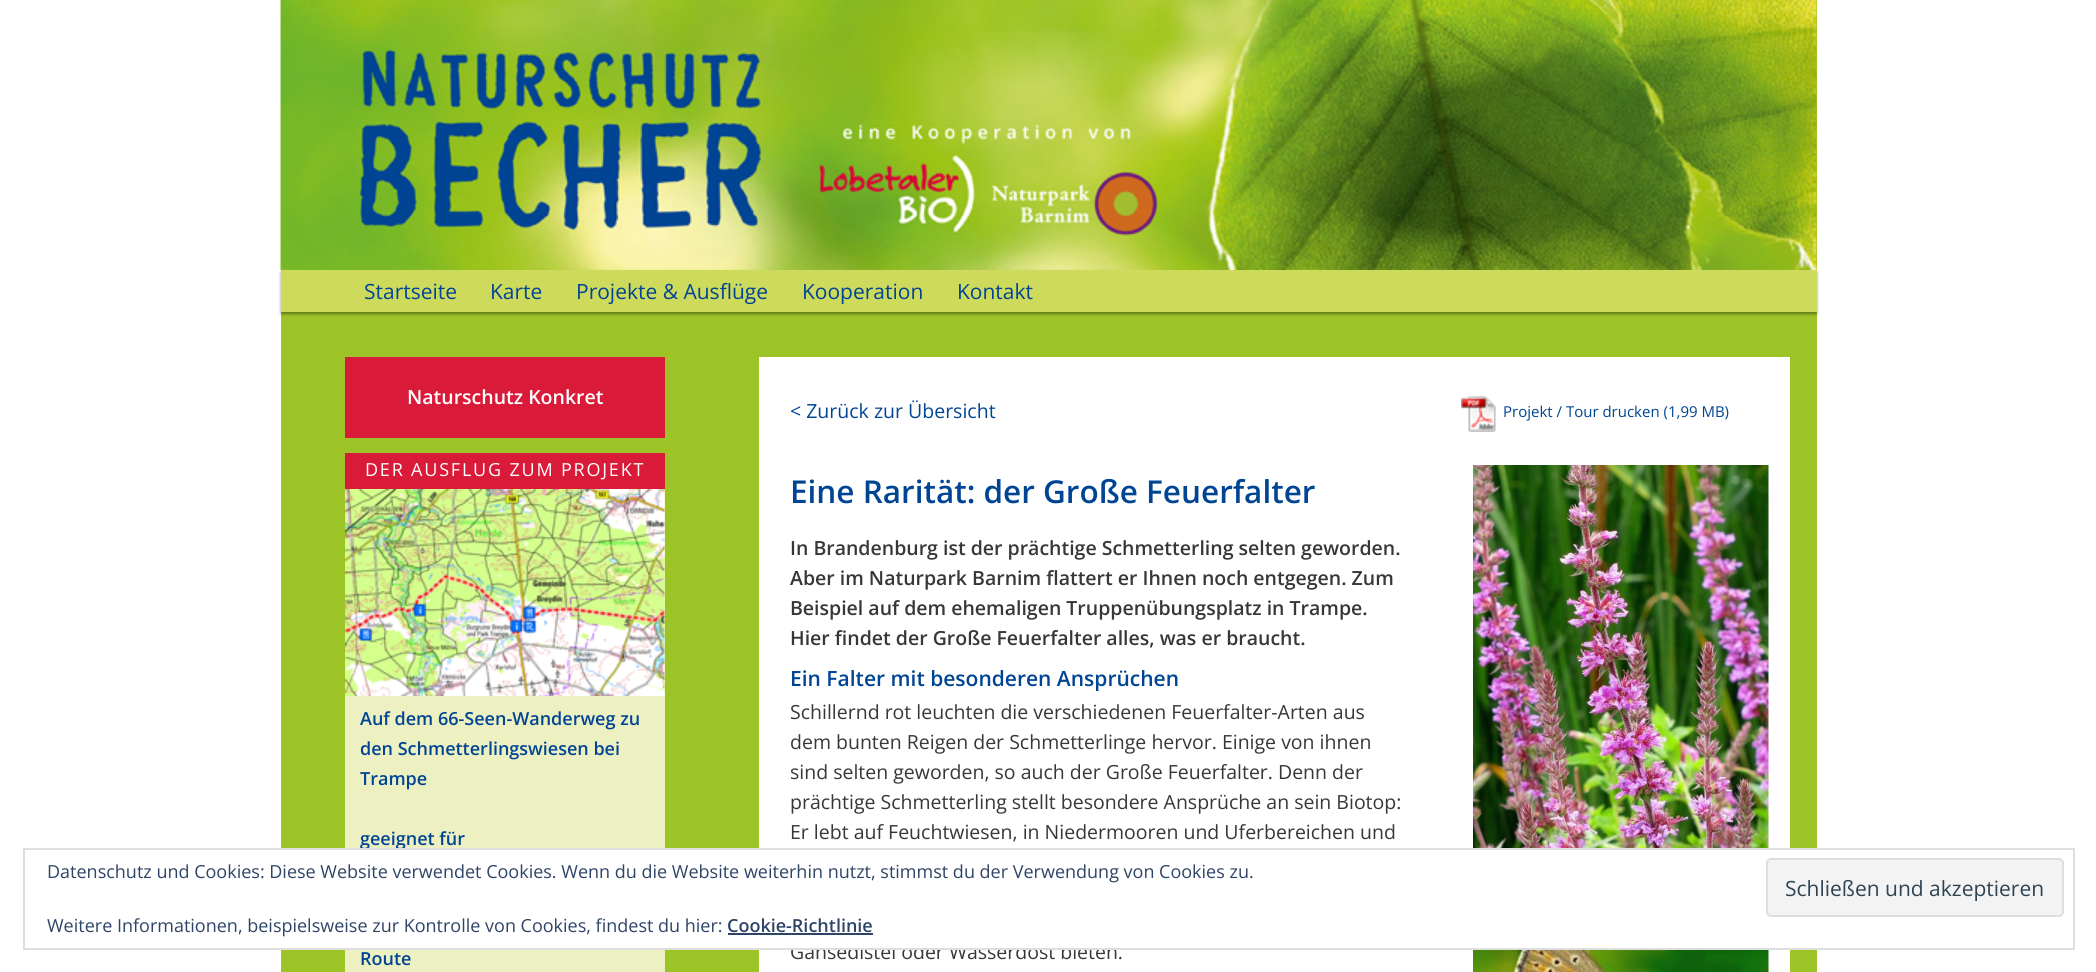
#include <cairo/cairo.h>
#include <math.h>
#include <stddef.h>


static void draw_spaced(cairo_t *cr, double x, double y, const char *s, double letter, double word) {
  cairo_move_to(cr, x, y);
  while (*s) {
    char ch[5] = {0};
    int n = 0;
    do ch[n++] = *s++; while ((*s & 0xC0) == 0x80);
    cairo_show_text(cr, ch);
    cairo_rel_move_to(cr, letter + word * (*ch == ' '), 0);
  }
}

static void rounded_rect(cairo_t *cr, double x, double y, double w, double h, double r) {
  cairo_new_sub_path(cr);
  cairo_arc(cr, x + w - r, y + h - r, r, 0, M_PI / 2);
  cairo_arc(cr, x + r, y + h - r, r, M_PI / 2, M_PI);
  cairo_arc(cr, x + r, y + r, r, M_PI, 1.5 * M_PI);
  cairo_arc(cr, x + w - r, y + r, r, 1.5 * M_PI, 2 * M_PI);
  cairo_close_path(cr);
}

static void draw_shadow(cairo_t *cr, double x, double y, double w, double h, double r, double blur, double alpha) {
  cairo_push_group_with_content(cr, CAIRO_CONTENT_ALPHA);
  cairo_set_operator(cr, CAIRO_OPERATOR_SOURCE);
  for (int i = 15; i >= -15 && fmin(w, h) + blur * i / 3 > 0; i -= 2) {
    double e = blur * i / 6;
    cairo_set_source_rgba(cr, 0, 0, 0, alpha * erfc((i - 1) / 8.5) / 2);
    rounded_rect(cr, x - e, y - e, w + 2 * e, h + 2 * e, fmax(0, fmin(r + e + blur * .6, fmin(w, h) / 2 + e)));
    cairo_fill(cr);
  }
  cairo_pattern_t *soft = cairo_pop_group(cr);
  cairo_mask(cr, soft);
  cairo_pattern_destroy(soft);
}

static void draw_image(cairo_t *cr, const char *path, double x, double y, double w, double h) {
  cairo_surface_t *image = cairo_image_surface_create_from_png(path);
  cairo_save(cr);
  cairo_set_source_surface(cr, image, x, y);
  cairo_rectangle(cr, x, y, w, h);
  cairo_fill(cr);
  cairo_restore(cr);
  cairo_surface_destroy(image);
}

static void draw(cairo_t *cr) {
  cairo_set_source_rgb(cr, 1, 1, 1);
  cairo_paint(cr);
  cairo_set_source_rgb(cr, 156 / 255.0, 196 / 255.0, 38 / 255.0);
  cairo_rectangle(cr, 281, 0, 1536, 972);
  cairo_fill(cr);
  cairo_set_source_rgb(cr, 0, 0, 0);
  draw_shadow(cr, 281, 272, 1536, 42, 0, 1.5, 0.4);
  draw_image(cr, "images/1.png", 280, 0, 1537, 270);
  cairo_set_source_rgb(cr, 206 / 255.0, 218 / 255.0, 92 / 255.0);
  cairo_rectangle(cr, 281, 270, 1536, 42);
  cairo_fill(cr);
  cairo_set_source_rgb(cr, 218 / 255.0, 26 / 255.0, 57 / 255.0);
  cairo_rectangle(cr, 345, 357, 320, 81);
  cairo_fill(cr);
  cairo_rectangle(cr, 345, 453, 320, 36);
  cairo_fill(cr);
  cairo_set_source_rgb(cr, 237 / 255.0, 241 / 255.0, 194 / 255.0);
  cairo_rectangle(cr, 345, 489, 320, 483);
  cairo_fill(cr);
  draw_image(cr, "images/2.png", 345, 489, 320, 207);
  cairo_set_source_rgb(cr, 1, 1, 1);
  cairo_rectangle(cr, 759, 357, 1031, 615);
  cairo_fill(cr);
  draw_image(cr, "images/3.png", 1461, 396, 35, 36);
  draw_image(cr, "images/4.png", 1473, 465, 296, 383);
  draw_image(cr, "images/5.png", 1473, 950, 296, 22);
  cairo_select_font_face(cr, "Open Sans", CAIRO_FONT_SLANT_NORMAL, CAIRO_FONT_WEIGHT_NORMAL);
  cairo_set_font_size(cr, 21);
  cairo_set_source_rgb(cr, 0, 68 / 255.0, 148 / 255.0);
  cairo_move_to(cr, 364, 299);
  cairo_show_text(cr, "Startseite");
  cairo_move_to(cr, 490, 299);
  cairo_show_text(cr, "Karte");
  cairo_move_to(cr, 576, 299);
  cairo_show_text(cr, "Projekte & Ausflüge");
  cairo_move_to(cr, 802, 299);
  cairo_show_text(cr, "Kooperation");
  cairo_move_to(cr, 957, 299);
  cairo_show_text(cr, "Kontakt");
  cairo_select_font_face(cr, "Open Sans SemiBold", CAIRO_FONT_SLANT_NORMAL, CAIRO_FONT_WEIGHT_NORMAL);
  cairo_set_font_size(cr, 19.5);
  cairo_set_source_rgb(cr, 1, 1, 1);
  cairo_move_to(cr, 407, 404);
  cairo_show_text(cr, "Naturschutz Konkret");
  cairo_select_font_face(cr, "Open Sans", CAIRO_FONT_SLANT_NORMAL, CAIRO_FONT_WEIGHT_NORMAL);
  cairo_set_font_size(cr, 18);
  draw_spaced(cr, 365, 476, "DER AUSFLUG ZUM PROJEKT", 1.8, 0);
  cairo_select_font_face(cr, "Open Sans SemiBold", CAIRO_FONT_SLANT_NORMAL, CAIRO_FONT_WEIGHT_NORMAL);
  cairo_set_source_rgb(cr, 0, 68 / 255.0, 148 / 255.0);
  cairo_move_to(cr, 360, 725);
  cairo_show_text(cr, "Auf dem 66-Seen-Wanderweg zu");
  cairo_move_to(cr, 360, 755);
  cairo_show_text(cr, "den Schmetterlingswiesen bei");
  cairo_move_to(cr, 360, 785);
  cairo_show_text(cr, "Trampe");
  cairo_move_to(cr, 360, 845);
  cairo_show_text(cr, "geeignet für");
  cairo_move_to(cr, 360, 965);
  cairo_show_text(cr, "Route");
  cairo_select_font_face(cr, "Open Sans", CAIRO_FONT_SLANT_NORMAL, CAIRO_FONT_WEIGHT_NORMAL);
  cairo_set_font_size(cr, 19.5);
  cairo_move_to(cr, 790, 418);
  cairo_show_text(cr, "< Zurück zur Übersicht");
  cairo_set_font_size(cr, 15);
  cairo_move_to(cr, 1503, 417);
  cairo_show_text(cr, "Projekt / Tour drucken (1,99 MB)");
  cairo_select_font_face(cr, "Open Sans SemiBold", CAIRO_FONT_SLANT_NORMAL, CAIRO_FONT_WEIGHT_NORMAL);
  cairo_set_font_size(cr, 31.5);
  cairo_move_to(cr, 790, 503);
  cairo_show_text(cr, "Eine Rarität: der Große Feuerfalter");
  cairo_set_font_size(cr, 19.5);
  cairo_set_source_rgb(cr, 55 / 255.0, 55 / 255.0, 55 / 255.0);
  cairo_move_to(cr, 790, 555);
  cairo_show_text(cr, "In Brandenburg ist der prächtige Schmetterling selten geworden.");
  cairo_move_to(cr, 790, 585);
  cairo_show_text(cr, "Aber im Naturpark Barnim flattert er Ihnen noch entgegen. Zum");
  cairo_move_to(cr, 790, 615);
  cairo_show_text(cr, "Beispiel auf dem ehemaligen Truppenübungsplatz in Trampe.");
  cairo_move_to(cr, 790, 645);
  cairo_show_text(cr, "Hier findet der Große Feuerfalter alles, was er braucht.");
  cairo_set_font_size(cr, 21);
  cairo_set_source_rgb(cr, 0, 68 / 255.0, 148 / 255.0);
  cairo_move_to(cr, 790, 686);
  cairo_show_text(cr, "Ein Falter mit besonderen Ansprüchen");
  cairo_select_font_face(cr, "Open Sans", CAIRO_FONT_SLANT_NORMAL, CAIRO_FONT_WEIGHT_NORMAL);
  cairo_set_font_size(cr, 19.5);
  cairo_set_source_rgb(cr, 55 / 255.0, 55 / 255.0, 55 / 255.0);
  cairo_move_to(cr, 790, 719);
  cairo_show_text(cr, "Schillernd rot leuchten die verschiedenen Feuerfalter-Arten aus");
  cairo_move_to(cr, 790, 749);
  cairo_show_text(cr, "dem bunten Reigen der Schmetterlinge hervor. Einige von ihnen");
  cairo_move_to(cr, 790, 779);
  cairo_show_text(cr, "sind selten geworden, so auch der Große Feuerfalter. Denn der");
  cairo_move_to(cr, 790, 809);
  cairo_show_text(cr, "prächtige Schmetterling stellt besondere Ansprüche an sein Biotop:");
  cairo_move_to(cr, 790, 839);
  cairo_show_text(cr, "Er lebt auf Feuchtwiesen, in Niedermooren und Uferbereichen und");
  cairo_move_to(cr, 790, 959);
  cairo_show_text(cr, "Gänsedistel oder Wasserdost bieten.");
  cairo_set_source_rgb(cr, 1, 1, 1);
  cairo_rectangle(cr, 281, 850, 1536, 98);
  cairo_fill(cr);
  cairo_rectangle(cr, 24, 849, 2050, 100);
  cairo_set_source_rgb(cr, 222 / 255.0, 222 / 255.0, 222 / 255.0);
  cairo_stroke(cr);
  cairo_set_font_size(cr, 18);
  cairo_set_source_rgb(cr, 46 / 255.0, 68 / 255.0, 103 / 255.0);
  cairo_move_to(cr, 47, 878);
  cairo_show_text(cr, "Datenschutz und Cookies: Diese Website verwendet Cookies. Wenn du die Website weiterhin nutzt, stimmst du der Verwendung von Cookies zu.");
  cairo_set_source_rgb(cr, 243 / 255.0, 243 / 255.0, 243 / 255.0);
  rounded_rect(cr, 1767, 859, 296, 57, 4);
  cairo_fill_preserve(cr);
  cairo_set_source_rgb(cr, 222 / 255.0, 222 / 255.0, 222 / 255.0);
  cairo_stroke(cr);
  cairo_set_font_size(cr, 21);
  cairo_set_source_rgb(cr, 46 / 255.0, 68 / 255.0, 83 / 255.0);
  cairo_move_to(cr, 1785, 896);
  cairo_show_text(cr, "Schließen und akzeptieren");
  cairo_set_font_size(cr, 18);
  cairo_set_source_rgb(cr, 46 / 255.0, 68 / 255.0, 103 / 255.0);
  cairo_move_to(cr, 47, 932);
  cairo_show_text(cr, "Weitere Informationen, beispielsweise zur Kontrolle von Cookies, findest du hier:");
  cairo_select_font_face(cr, "Open Sans SemiBold", CAIRO_FONT_SLANT_NORMAL, CAIRO_FONT_WEIGHT_NORMAL);
  cairo_move_to(cr, 727, 932);
  cairo_show_text(cr, "Cookie-Richtlinie");
  cairo_rectangle(cr, 728, 933, 145, 2);
  cairo_fill(cr);
}

int main(void) {
  cairo_surface_t *surface = cairo_image_surface_create(CAIRO_FORMAT_RGB24, 2096, 972);
  cairo_t *cr = cairo_create(surface);
  cairo_font_options_t *options = cairo_font_options_create();
  cairo_font_options_set_hint_metrics(options, CAIRO_HINT_METRICS_OFF);
  cairo_font_options_set_hint_style(options, CAIRO_HINT_STYLE_NONE);
  cairo_set_font_options(cr, options);
  cairo_set_miter_limit(cr, 4);
  draw(cr);
  cairo_surface_write_to_png(surface, "out.png");
  cairo_font_options_destroy(options);
  cairo_destroy(cr);
  cairo_surface_destroy(surface);
  return 0;
}
